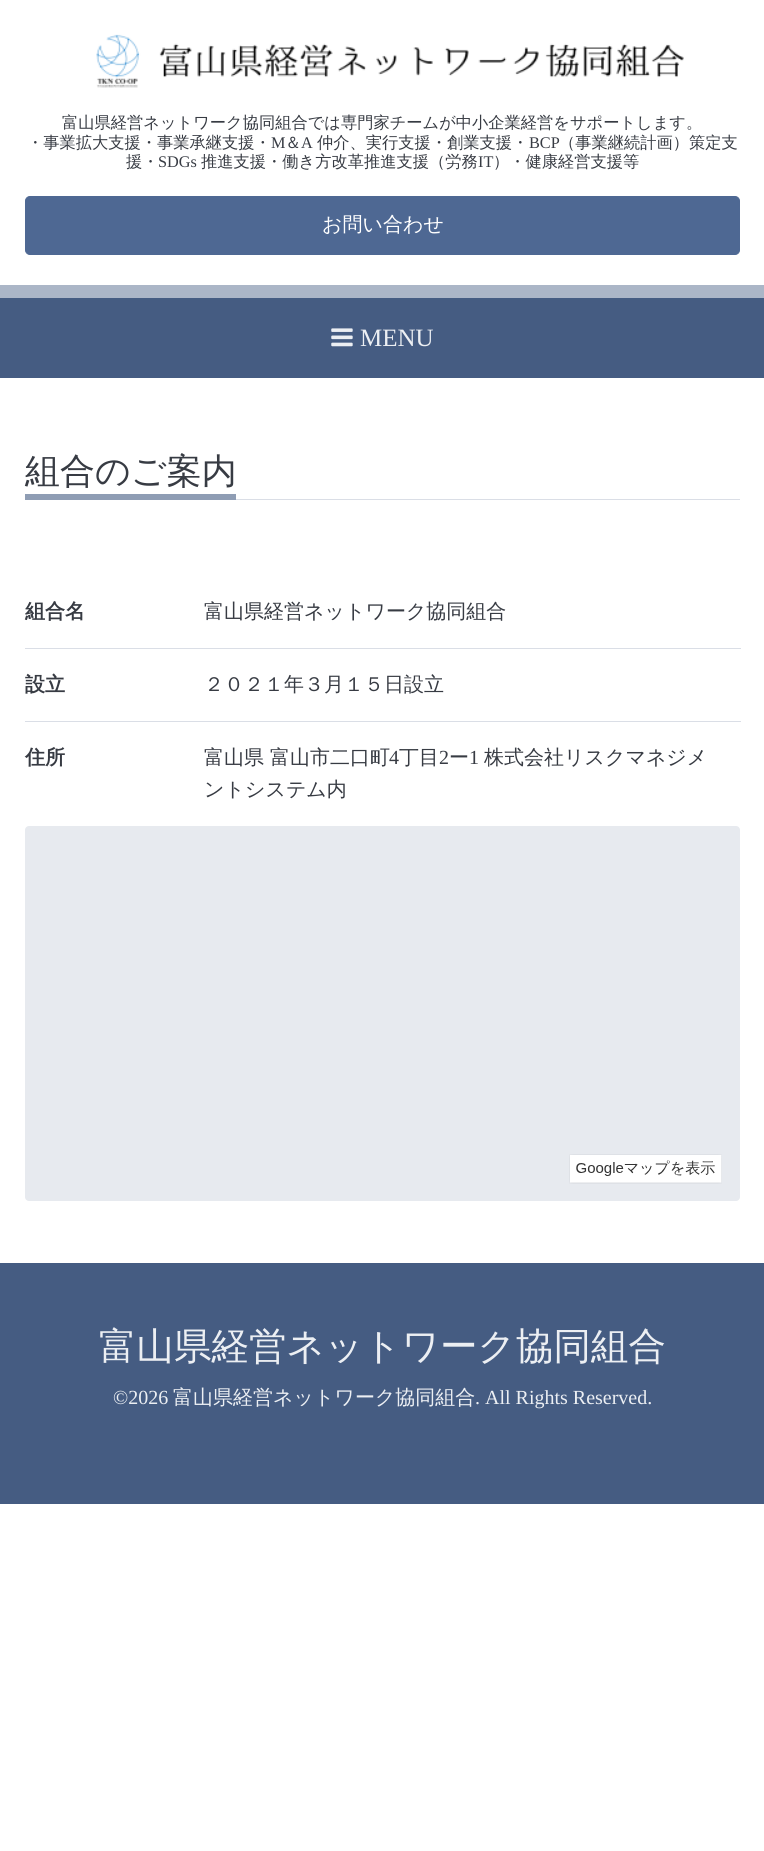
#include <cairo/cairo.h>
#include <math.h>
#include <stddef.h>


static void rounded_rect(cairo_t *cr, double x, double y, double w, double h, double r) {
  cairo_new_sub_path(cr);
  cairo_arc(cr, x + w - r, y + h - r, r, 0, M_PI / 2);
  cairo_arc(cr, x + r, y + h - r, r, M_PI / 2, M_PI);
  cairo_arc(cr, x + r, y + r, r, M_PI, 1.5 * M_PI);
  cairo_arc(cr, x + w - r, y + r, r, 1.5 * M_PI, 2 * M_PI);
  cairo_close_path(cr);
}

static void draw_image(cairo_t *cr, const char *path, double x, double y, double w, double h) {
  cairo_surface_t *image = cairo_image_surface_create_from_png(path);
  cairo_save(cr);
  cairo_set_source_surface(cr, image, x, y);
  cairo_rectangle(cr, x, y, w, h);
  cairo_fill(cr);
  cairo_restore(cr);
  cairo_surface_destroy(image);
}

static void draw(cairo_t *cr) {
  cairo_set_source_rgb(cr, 1, 1, 1);
  cairo_paint(cr);
  draw_image(cr, "images/1.png", 96, 34, 588, 54);
  cairo_set_source_rgb(cr, 78 / 255.0, 104 / 255.0, 147 / 255.0);
  rounded_rect(cr, 25.5, 196.5, 714, 58, 4.5);
  cairo_fill_preserve(cr);
  cairo_set_line_width(cr, 1);
  cairo_stroke(cr);
  cairo_set_source_rgb(cr, 171 / 255.0, 182 / 255.0, 199 / 255.0);
  cairo_rectangle(cr, 0, 285, 764, 13);
  cairo_fill(cr);
  cairo_set_source_rgb(cr, 69 / 255.0, 92 / 255.0, 130 / 255.0);
  cairo_rectangle(cr, 0, 298, 764, 80);
  cairo_fill(cr);
  draw_image(cr, "images/2.png", 331, 328, 22, 19);
  cairo_set_source_rgb(cr, 218 / 255.0, 222 / 255.0, 230 / 255.0);
  cairo_rectangle(cr, 236, 499, 504, 1);
  cairo_fill(cr);
  cairo_set_source_rgb(cr, 143 / 255.0, 157 / 255.0, 180 / 255.0);
  cairo_rectangle(cr, 25, 494, 211, 6);
  cairo_fill(cr);
  cairo_set_source_rgb(cr, 218 / 255.0, 222 / 255.0, 230 / 255.0);
  cairo_rectangle(cr, 25, 648, 716, 1);
  cairo_fill(cr);
  cairo_rectangle(cr, 25, 721, 716, 1);
  cairo_fill(cr);
  cairo_set_source_rgb(cr, 231 / 255.0, 234 / 255.0, 239 / 255.0);
  rounded_rect(cr, 25, 826, 715, 375, 4);
  cairo_fill(cr);
  draw_image(cr, "images/3.png", 569, 1154, 153, 30);
  cairo_set_source_rgb(cr, 69 / 255.0, 92 / 255.0, 130 / 255.0);
  cairo_rectangle(cr, 0, 1263, 764, 241);
  cairo_fill(cr);
  cairo_select_font_face(cr, "WenQuanYi Zen Hei Medium", CAIRO_FONT_SLANT_NORMAL, CAIRO_FONT_WEIGHT_NORMAL);
  cairo_set_font_size(cr, 16.25);
  cairo_set_source_rgb(cr, 55 / 255.0, 59 / 255.0, 67 / 255.0);
  cairo_move_to(cr, 62, 128);
  cairo_show_text(cr, "富山県経営ネットワーク協同組合では専門家チームが中小企業経営をサポートします。");
  cairo_move_to(cr, 27, 148);
  cairo_show_text(cr, "・事業拡大支援・事業承継支援・");
  cairo_select_font_face(cr, "Liberation Serif", CAIRO_FONT_SLANT_NORMAL, CAIRO_FONT_WEIGHT_NORMAL);
  cairo_move_to(cr, 271, 148);
  cairo_show_text(cr, "M");
  cairo_select_font_face(cr, "WenQuanYi Zen Hei Medium", CAIRO_FONT_SLANT_NORMAL, CAIRO_FONT_WEIGHT_NORMAL);
  cairo_move_to(cr, 285, 148);
  cairo_show_text(cr, "＆");
  cairo_select_font_face(cr, "Liberation Serif", CAIRO_FONT_SLANT_NORMAL, CAIRO_FONT_WEIGHT_NORMAL);
  cairo_move_to(cr, 301, 148);
  cairo_show_text(cr, "A");
  cairo_select_font_face(cr, "WenQuanYi Zen Hei Medium", CAIRO_FONT_SLANT_NORMAL, CAIRO_FONT_WEIGHT_NORMAL);
  cairo_move_to(cr, 317, 148);
  cairo_show_text(cr, "仲介、実行支援・創業支援・");
  cairo_select_font_face(cr, "Liberation Serif", CAIRO_FONT_SLANT_NORMAL, CAIRO_FONT_WEIGHT_NORMAL);
  cairo_move_to(cr, 529, 148);
  cairo_show_text(cr, "BCP");
  cairo_select_font_face(cr, "WenQuanYi Zen Hei Medium", CAIRO_FONT_SLANT_NORMAL, CAIRO_FONT_WEIGHT_NORMAL);
  cairo_move_to(cr, 559, 148);
  cairo_show_text(cr, "（事業継続計画）策定支");
  cairo_move_to(cr, 126, 167);
  cairo_show_text(cr, "援・");
  cairo_select_font_face(cr, "Liberation Serif", CAIRO_FONT_SLANT_NORMAL, CAIRO_FONT_WEIGHT_NORMAL);
  cairo_move_to(cr, 158, 167);
  cairo_show_text(cr, "SDGs");
  cairo_select_font_face(cr, "WenQuanYi Zen Hei Medium", CAIRO_FONT_SLANT_NORMAL, CAIRO_FONT_WEIGHT_NORMAL);
  cairo_move_to(cr, 201, 167);
  cairo_show_text(cr, "推進支援・働き方改革推進支援（労務");
  cairo_select_font_face(cr, "Liberation Serif", CAIRO_FONT_SLANT_NORMAL, CAIRO_FONT_WEIGHT_NORMAL);
  cairo_move_to(cr, 478, 167);
  cairo_show_text(cr, "IT");
  cairo_select_font_face(cr, "WenQuanYi Zen Hei Medium", CAIRO_FONT_SLANT_NORMAL, CAIRO_FONT_WEIGHT_NORMAL);
  cairo_move_to(cr, 493, 167);
  cairo_show_text(cr, "）・健康経営支援等");
  cairo_set_font_size(cr, 20);
  cairo_set_source_rgb(cr, 1, 1, 1);
  cairo_move_to(cr, 322, 231);
  cairo_show_text(cr, "お問い合わせ");
  cairo_select_font_face(cr, "Liberation Serif", CAIRO_FONT_SLANT_NORMAL, CAIRO_FONT_WEIGHT_NORMAL);
  cairo_set_font_size(cr, 25);
  cairo_set_source_rgb(cr, 236 / 255.0, 239 / 255.0, 243 / 255.0);
  cairo_move_to(cr, 360, 346);
  cairo_show_text(cr, "MENU");
  cairo_select_font_face(cr, "WenQuanYi Zen Hei Medium", CAIRO_FONT_SLANT_NORMAL, CAIRO_FONT_WEIGHT_NORMAL);
  cairo_set_font_size(cr, 35);
  cairo_set_source_rgb(cr, 55 / 255.0, 59 / 255.0, 67 / 255.0);
  cairo_move_to(cr, 25, 483);
  cairo_show_text(cr, "組合のご案内");
  cairo_select_font_face(cr, "WenQuanYi Zen Hei", CAIRO_FONT_SLANT_NORMAL, CAIRO_FONT_WEIGHT_BOLD);
  cairo_set_font_size(cr, 20);
  cairo_move_to(cr, 25, 618);
  cairo_show_text(cr, "組合名");
  cairo_select_font_face(cr, "WenQuanYi Zen Hei Medium", CAIRO_FONT_SLANT_NORMAL, CAIRO_FONT_WEIGHT_NORMAL);
  cairo_move_to(cr, 204, 618);
  cairo_show_text(cr, "富山県経営ネットワーク協同組合");
  cairo_select_font_face(cr, "WenQuanYi Zen Hei", CAIRO_FONT_SLANT_NORMAL, CAIRO_FONT_WEIGHT_BOLD);
  cairo_move_to(cr, 25, 691);
  cairo_show_text(cr, "設立");
  cairo_select_font_face(cr, "WenQuanYi Zen Hei Medium", CAIRO_FONT_SLANT_NORMAL, CAIRO_FONT_WEIGHT_NORMAL);
  cairo_move_to(cr, 204, 691);
  cairo_show_text(cr, "２０２１年３月１５日設立");
  cairo_select_font_face(cr, "WenQuanYi Zen Hei", CAIRO_FONT_SLANT_NORMAL, CAIRO_FONT_WEIGHT_BOLD);
  cairo_move_to(cr, 25, 764);
  cairo_show_text(cr, "住所");
  cairo_select_font_face(cr, "WenQuanYi Zen Hei Medium", CAIRO_FONT_SLANT_NORMAL, CAIRO_FONT_WEIGHT_NORMAL);
  cairo_move_to(cr, 204, 764);
  cairo_show_text(cr, "富山県 富山市二口町");
  cairo_select_font_face(cr, "Liberation Serif", CAIRO_FONT_SLANT_NORMAL, CAIRO_FONT_WEIGHT_NORMAL);
  cairo_move_to(cr, 389, 764);
  cairo_show_text(cr, "4");
  cairo_select_font_face(cr, "WenQuanYi Zen Hei Medium", CAIRO_FONT_SLANT_NORMAL, CAIRO_FONT_WEIGHT_NORMAL);
  cairo_move_to(cr, 399, 764);
  cairo_show_text(cr, "丁目");
  cairo_select_font_face(cr, "Liberation Serif", CAIRO_FONT_SLANT_NORMAL, CAIRO_FONT_WEIGHT_NORMAL);
  cairo_move_to(cr, 439, 764);
  cairo_show_text(cr, "2");
  cairo_select_font_face(cr, "WenQuanYi Zen Hei Medium", CAIRO_FONT_SLANT_NORMAL, CAIRO_FONT_WEIGHT_NORMAL);
  cairo_move_to(cr, 449, 764);
  cairo_show_text(cr, "ー");
  cairo_select_font_face(cr, "Liberation Serif", CAIRO_FONT_SLANT_NORMAL, CAIRO_FONT_WEIGHT_NORMAL);
  cairo_move_to(cr, 469, 764);
  cairo_show_text(cr, "1");
  cairo_select_font_face(cr, "WenQuanYi Zen Hei Medium", CAIRO_FONT_SLANT_NORMAL, CAIRO_FONT_WEIGHT_NORMAL);
  cairo_move_to(cr, 484, 764);
  cairo_show_text(cr, "株式会社リスクマネジメ");
  cairo_move_to(cr, 204, 796);
  cairo_show_text(cr, "ントシステム内");
  cairo_set_font_size(cr, 37.5);
  cairo_set_source_rgb(cr, 236 / 255.0, 239 / 255.0, 243 / 255.0);
  cairo_move_to(cr, 99, 1359);
  cairo_show_text(cr, "富山県経営ネットワーク協同組合");
  cairo_select_font_face(cr, "Liberation Serif", CAIRO_FONT_SLANT_NORMAL, CAIRO_FONT_WEIGHT_NORMAL);
  cairo_set_font_size(cr, 20);
  cairo_move_to(cr, 113, 1404);
  cairo_show_text(cr, "©2026");
  cairo_select_font_face(cr, "WenQuanYi Zen Hei Medium", CAIRO_FONT_SLANT_NORMAL, CAIRO_FONT_WEIGHT_NORMAL);
  cairo_move_to(cr, 173, 1404);
  cairo_show_text(cr, "富山県経営ネットワーク協同組合");
  cairo_select_font_face(cr, "Liberation Serif", CAIRO_FONT_SLANT_NORMAL, CAIRO_FONT_WEIGHT_NORMAL);
  cairo_move_to(cr, 475, 1404);
  cairo_show_text(cr, ". All Rights Reserved.");
}

int main(void) {
  cairo_surface_t *surface = cairo_image_surface_create(CAIRO_FORMAT_RGB24, 764, 1851);
  cairo_t *cr = cairo_create(surface);
  cairo_font_options_t *options = cairo_font_options_create();
  cairo_font_options_set_hint_metrics(options, CAIRO_HINT_METRICS_OFF);
  cairo_font_options_set_hint_style(options, CAIRO_HINT_STYLE_NONE);
  cairo_set_font_options(cr, options);
  cairo_set_miter_limit(cr, 4);
  draw(cr);
  cairo_surface_write_to_png(surface, "out.png");
  cairo_font_options_destroy(options);
  cairo_destroy(cr);
  cairo_surface_destroy(surface);
  return 0;
}
